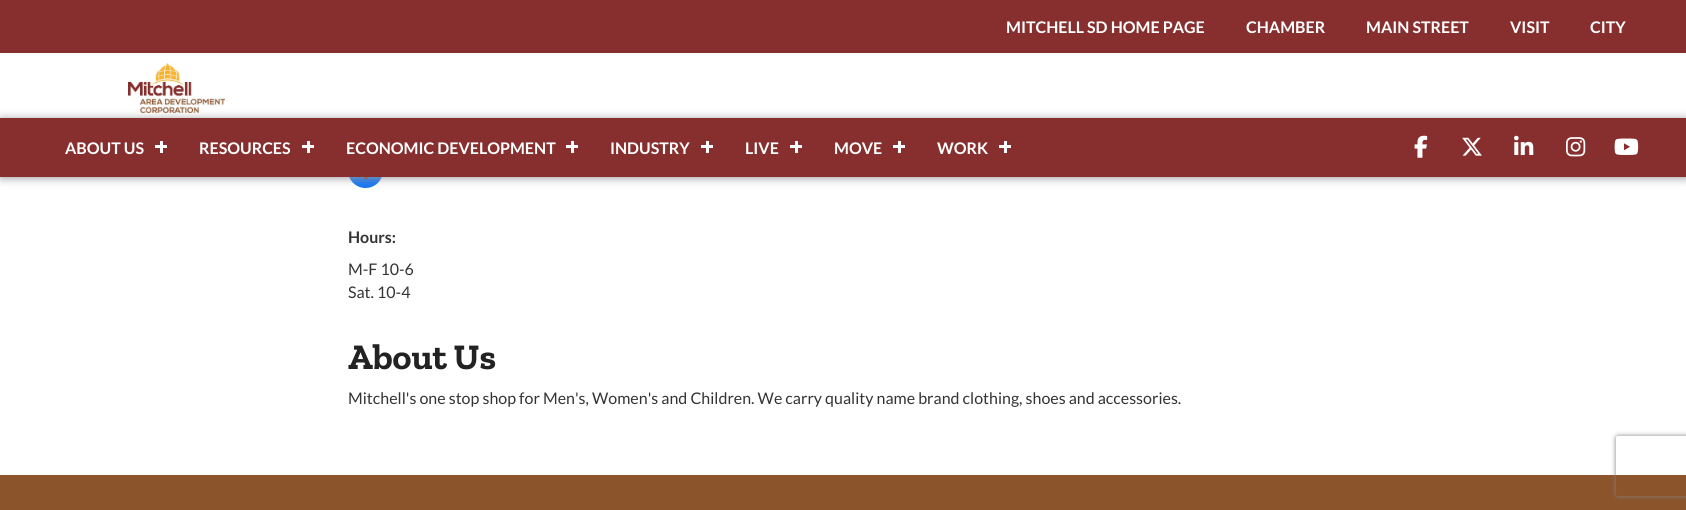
#include <cairo/cairo.h>
#include <math.h>
#include <stddef.h>


static void rounded_rect(cairo_t *cr, double x, double y, double w, double h, double r) {
  cairo_new_sub_path(cr);
  cairo_arc(cr, x + w - r, y + h - r, r, 0, M_PI / 2);
  cairo_arc(cr, x + r, y + h - r, r, M_PI / 2, M_PI);
  cairo_arc(cr, x + r, y + r, r, M_PI, 1.5 * M_PI);
  cairo_arc(cr, x + w - r, y + r, r, 1.5 * M_PI, 2 * M_PI);
  cairo_close_path(cr);
}

static void draw_shadow(cairo_t *cr, double x, double y, double w, double h, double r, double blur, double alpha) {
  cairo_push_group_with_content(cr, CAIRO_CONTENT_ALPHA);
  cairo_set_operator(cr, CAIRO_OPERATOR_SOURCE);
  for (int i = 15; i >= -15 && fmin(w, h) + blur * i / 3 > 0; i -= 2) {
    double e = blur * i / 6;
    cairo_set_source_rgba(cr, 0, 0, 0, alpha * erfc((i - 1) / 8.5) / 2);
    rounded_rect(cr, x - e, y - e, w + 2 * e, h + 2 * e, fmax(0, fmin(r + e + blur * .6, fmin(w, h) / 2 + e)));
    cairo_fill(cr);
  }
  cairo_pattern_t *soft = cairo_pop_group(cr);
  cairo_mask(cr, soft);
  cairo_pattern_destroy(soft);
}

static void draw_image(cairo_t *cr, const char *path, double x, double y, double w, double h) {
  cairo_surface_t *image = cairo_image_surface_create_from_png(path);
  cairo_save(cr);
  cairo_set_source_surface(cr, image, x, y);
  cairo_rectangle(cr, x, y, w, h);
  cairo_fill(cr);
  cairo_restore(cr);
  cairo_surface_destroy(image);
}

static void draw(cairo_t *cr) {
  cairo_set_source_rgb(cr, 1, 1, 1);
  cairo_paint(cr);
  cairo_set_source_rgb(cr, 135 / 255.0, 47 / 255.0, 46 / 255.0);
  cairo_rectangle(cr, 0, 0, 1686, 53);
  cairo_fill(cr);
  draw_image(cr, "images/1.png", 128, 63, 97, 50);
  cairo_set_source_rgb(cr, 24 / 255.0, 119 / 255.0, 242 / 255.0);
  cairo_arc(cr, 365.5, 170.5, 17.5, 0, 2 * M_PI);
  cairo_fill(cr);
  draw_image(cr, "images/7.png", 364, 177, 4, 2);
  cairo_set_source_rgb(cr, 153 / 255.0, 153 / 255.0, 153 / 255.0);
  draw_shadow(cr, 1, 119, 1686, 59, 0, 4.5, 1);
  cairo_set_source_rgb(cr, 135 / 255.0, 47 / 255.0, 46 / 255.0);
  cairo_rectangle(cr, 0, 118, 1686, 59);
  cairo_fill(cr);
  cairo_set_source_rgb(cr, 1, 1, 1);
  cairo_rectangle(cr, 155, 145, 12, 3);
  cairo_fill(cr);
  cairo_rectangle(cr, 160, 141, 3, 12);
  cairo_fill(cr);
  cairo_rectangle(cr, 302, 145, 12, 3);
  cairo_fill(cr);
  cairo_rectangle(cr, 307, 141, 3, 12);
  cairo_fill(cr);
  cairo_rectangle(cr, 566, 145, 12, 3);
  cairo_fill(cr);
  cairo_rectangle(cr, 571, 141, 3, 12);
  cairo_fill(cr);
  cairo_rectangle(cr, 701, 145, 12, 3);
  cairo_fill(cr);
  cairo_rectangle(cr, 706, 141, 3, 12);
  cairo_fill(cr);
  cairo_rectangle(cr, 790, 145, 12, 3);
  cairo_fill(cr);
  cairo_rectangle(cr, 795, 141, 3, 12);
  cairo_fill(cr);
  cairo_rectangle(cr, 893, 145, 12, 3);
  cairo_fill(cr);
  cairo_rectangle(cr, 898, 141, 3, 12);
  cairo_fill(cr);
  cairo_rectangle(cr, 999, 145, 12, 3);
  cairo_fill(cr);
  cairo_rectangle(cr, 1004, 141, 3, 12);
  cairo_fill(cr);
  draw_image(cr, "images/2.png", 1414, 135, 14, 23);
  draw_image(cr, "images/3.png", 1462, 137, 20, 19);
  draw_image(cr, "images/4.png", 1514, 135, 20, 20);
  draw_image(cr, "images/5.png", 1566, 137, 20, 20);
  draw_image(cr, "images/6.png", 1614, 138, 25, 17);
  cairo_set_source_rgb(cr, 139 / 255.0, 84 / 255.0, 43 / 255.0);
  cairo_rectangle(cr, 0, 475, 1686, 35);
  cairo_fill(cr);
  cairo_save(cr);
  cairo_set_fill_rule(cr, CAIRO_FILL_RULE_EVEN_ODD);
  cairo_new_path(cr);
  cairo_move_to(cr, 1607, 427);
  cairo_line_to(cr, 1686, 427);
  cairo_line_to(cr, 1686, 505);
  cairo_line_to(cr, 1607, 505);
  cairo_close_path(cr);
  cairo_move_to(cr, 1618, 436);
  cairo_line_to(cr, 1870, 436);
  cairo_curve_to(cr, 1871, 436, 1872, 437, 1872, 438);
  cairo_line_to(cr, 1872, 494);
  cairo_curve_to(cr, 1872, 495, 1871, 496, 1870, 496);
  cairo_line_to(cr, 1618, 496);
  cairo_curve_to(cr, 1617, 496, 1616, 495, 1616, 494);
  cairo_line_to(cr, 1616, 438);
  cairo_curve_to(cr, 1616, 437, 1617, 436, 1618, 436);
  cairo_close_path(cr);
  cairo_clip(cr);
  cairo_set_source_rgb(cr, 128 / 255.0, 128 / 255.0, 128 / 255.0);
  draw_shadow(cr, 1616, 436, 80, 60, 2, 2.5, 1);
  cairo_restore(cr);
  cairo_select_font_face(cr, "Lato", CAIRO_FONT_SLANT_NORMAL, CAIRO_FONT_WEIGHT_BOLD);
  cairo_set_font_size(cr, 16);
  cairo_set_source_rgb(cr, 1, 1, 1);
  cairo_move_to(cr, 1006, 33);
  cairo_show_text(cr, "MITCHELL SD HOME PAGE");
  cairo_move_to(cr, 1246, 33);
  cairo_show_text(cr, "CHAMBER");
  cairo_move_to(cr, 1366, 33);
  cairo_show_text(cr, "MAIN STREET");
  cairo_move_to(cr, 1510, 33);
  cairo_show_text(cr, "VISIT");
  cairo_move_to(cr, 1590, 33);
  cairo_show_text(cr, "CITY");
  cairo_move_to(cr, 65, 154);
  cairo_show_text(cr, "ABOUT US");
  cairo_move_to(cr, 199, 154);
  cairo_show_text(cr, "RESOURCES");
  cairo_move_to(cr, 346, 154);
  cairo_show_text(cr, "ECONOMIC DEVELOPMENT");
  cairo_move_to(cr, 610, 154);
  cairo_show_text(cr, "INDUSTRY");
  cairo_move_to(cr, 745, 154);
  cairo_show_text(cr, "LIVE");
  cairo_move_to(cr, 834, 154);
  cairo_show_text(cr, "MOVE");
  cairo_move_to(cr, 937, 154);
  cairo_show_text(cr, "WORK");
  cairo_set_source_rgb(cr, 51 / 255.0, 51 / 255.0, 51 / 255.0);
  cairo_move_to(cr, 348, 243);
  cairo_show_text(cr, "Hours:");
  cairo_select_font_face(cr, "Lato", CAIRO_FONT_SLANT_NORMAL, CAIRO_FONT_WEIGHT_NORMAL);
  cairo_move_to(cr, 348, 275);
  cairo_show_text(cr, "M-F 10-6");
  cairo_move_to(cr, 348, 298);
  cairo_show_text(cr, "Sat. 10-4");
  cairo_select_font_face(cr, "Zilla Slab", CAIRO_FONT_SLANT_NORMAL, CAIRO_FONT_WEIGHT_BOLD);
  cairo_set_font_size(cr, 36);
  cairo_set_source_rgb(cr, 34 / 255.0, 34 / 255.0, 34 / 255.0);
  cairo_move_to(cr, 348, 369);
  cairo_show_text(cr, "About Us");
  cairo_select_font_face(cr, "Lato", CAIRO_FONT_SLANT_NORMAL, CAIRO_FONT_WEIGHT_NORMAL);
  cairo_set_font_size(cr, 16);
  cairo_set_source_rgb(cr, 51 / 255.0, 51 / 255.0, 51 / 255.0);
  cairo_move_to(cr, 348, 404);
  cairo_show_text(cr, "Mitchell's one stop shop for Men's, Women's and Children. We carry quality name brand clothing, shoes and accessories.");
}

int main(void) {
  cairo_surface_t *surface = cairo_image_surface_create(CAIRO_FORMAT_RGB24, 1686, 510);
  cairo_t *cr = cairo_create(surface);
  cairo_font_options_t *options = cairo_font_options_create();
  cairo_font_options_set_hint_metrics(options, CAIRO_HINT_METRICS_OFF);
  cairo_font_options_set_hint_style(options, CAIRO_HINT_STYLE_NONE);
  cairo_set_font_options(cr, options);
  cairo_set_miter_limit(cr, 4);
  draw(cr);
  cairo_surface_write_to_png(surface, "out.png");
  cairo_font_options_destroy(options);
  cairo_destroy(cr);
  cairo_surface_destroy(surface);
  return 0;
}
